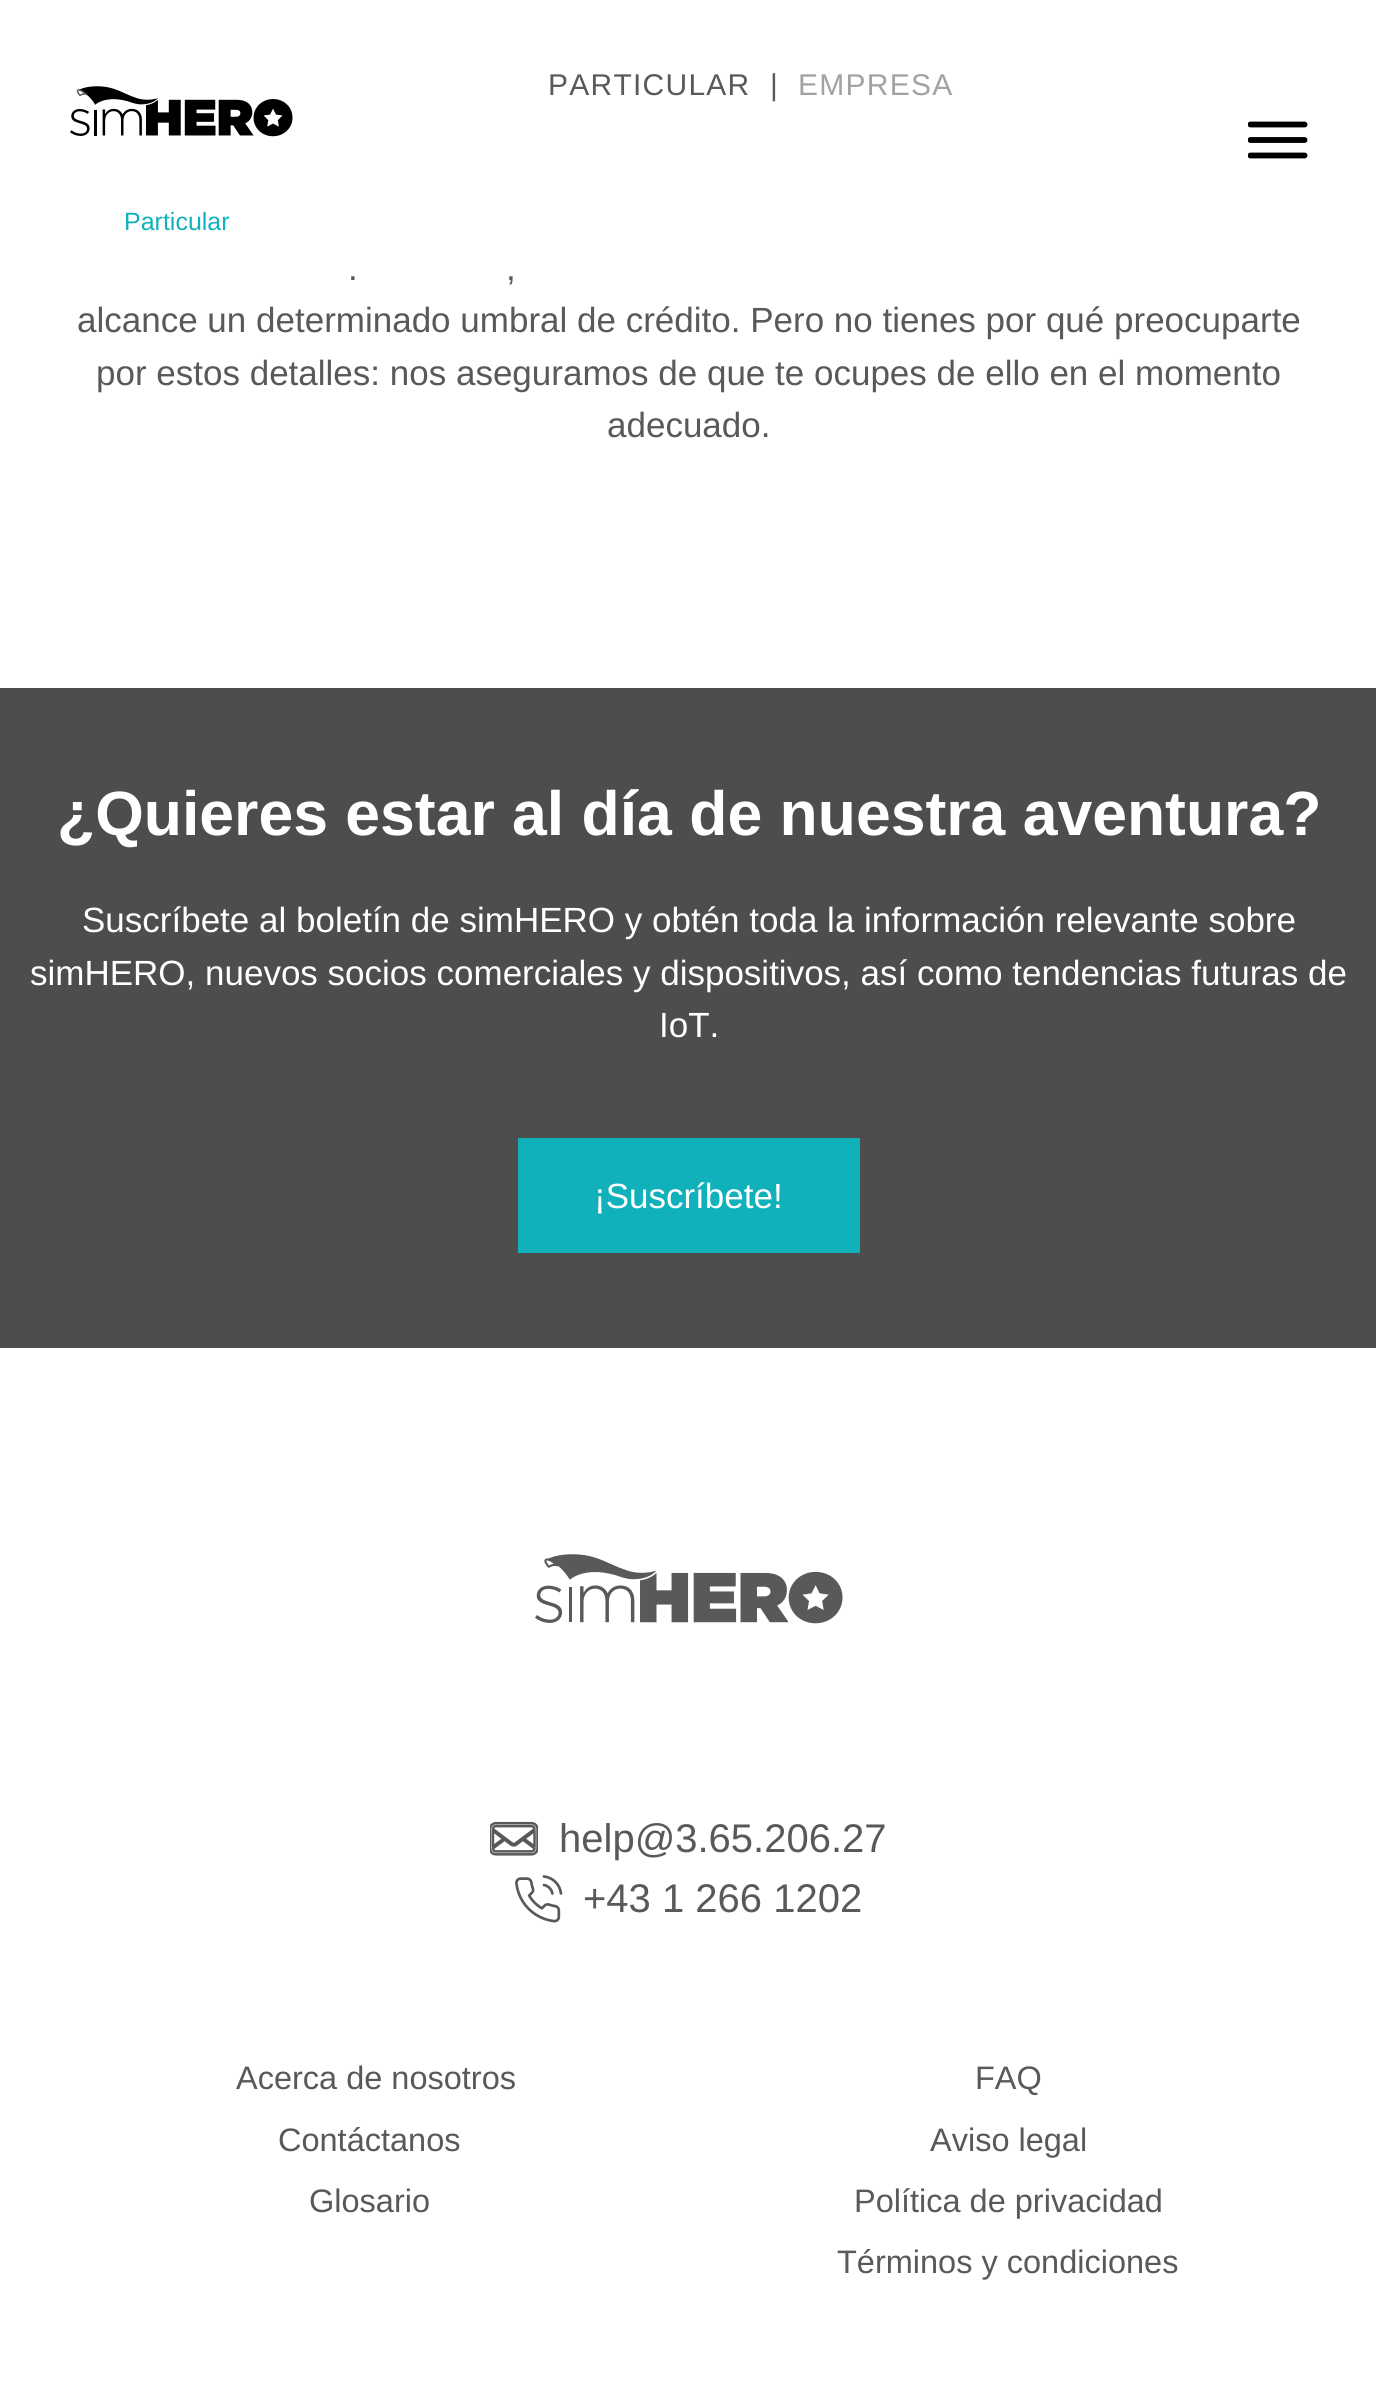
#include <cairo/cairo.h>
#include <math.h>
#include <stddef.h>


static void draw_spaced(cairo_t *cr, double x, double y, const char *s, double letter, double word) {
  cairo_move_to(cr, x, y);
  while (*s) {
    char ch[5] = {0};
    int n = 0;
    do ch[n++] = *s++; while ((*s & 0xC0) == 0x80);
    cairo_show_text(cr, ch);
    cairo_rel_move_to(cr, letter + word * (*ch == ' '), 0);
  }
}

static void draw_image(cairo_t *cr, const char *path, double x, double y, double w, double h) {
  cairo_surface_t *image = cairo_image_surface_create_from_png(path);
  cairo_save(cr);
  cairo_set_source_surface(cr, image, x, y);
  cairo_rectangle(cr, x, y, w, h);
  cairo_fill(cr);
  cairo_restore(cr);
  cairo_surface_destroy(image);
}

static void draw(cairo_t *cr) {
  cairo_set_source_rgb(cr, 1, 1, 1);
  cairo_paint(cr);
  draw_image(cr, "images/1.png", 1248, 121, 60, 38);
  draw_image(cr, "images/2.png", 70, 86, 223, 51);
  cairo_set_source_rgb(cr, 77 / 255.0, 77 / 255.0, 77 / 255.0);
  cairo_rectangle(cr, 0, 688, 1376, 660);
  cairo_fill(cr);
  cairo_set_source_rgb(cr, 17 / 255.0, 177 / 255.0, 188 / 255.0);
  cairo_rectangle(cr, 518, 1138, 342, 115);
  cairo_fill(cr);
  draw_image(cr, "images/3.png", 535, 1554, 308, 70);
  draw_image(cr, "images/4.png", 490, 1821, 48, 35);
  draw_image(cr, "images/5.png", 515, 1875, 48, 48);
  cairo_select_font_face(cr, "Liberation Sans", CAIRO_FONT_SLANT_NORMAL, CAIRO_FONT_WEIGHT_NORMAL);
  cairo_set_font_size(cr, 30);
  cairo_set_source_rgb(cr, 89 / 255.0, 89 / 255.0, 89 / 255.0);
  draw_spaced(cr, 548, 95, "PARTICULAR", 1.25, 0);
  draw_spaced(cr, 770, 95, "|", 1.25, 0);
  cairo_set_source_rgb(cr, 162 / 255.0, 162 / 255.0, 162 / 255.0);
  draw_spaced(cr, 798, 95, "EMPRESA", 1.25, 0);
  cairo_set_font_size(cr, 25);
  cairo_set_source_rgb(cr, 17 / 255.0, 177 / 255.0, 188 / 255.0);
  cairo_move_to(cr, 124, 230);
  cairo_show_text(cr, "Particular");
  cairo_set_font_size(cr, 35);
  cairo_set_source_rgb(cr, 89 / 255.0, 89 / 255.0, 89 / 255.0);
  cairo_move_to(cr, 348, 280);
  cairo_show_text(cr, ".");
  cairo_move_to(cr, 506, 280);
  cairo_show_text(cr, ",");
  cairo_move_to(cr, 77, 332);
  cairo_show_text(cr, "alcance un determinado umbral de crédito. Pero no tienes por qué preocuparte");
  cairo_move_to(cr, 96, 385);
  cairo_show_text(cr, "por estos detalles: nos aseguramos de que te ocupes de ello en el momento");
  cairo_move_to(cr, 607, 437);
  cairo_show_text(cr, "adecuado.");
  cairo_select_font_face(cr, "Liberation Sans", CAIRO_FONT_SLANT_NORMAL, CAIRO_FONT_WEIGHT_BOLD);
  cairo_set_font_size(cr, 62.5);
  cairo_set_source_rgb(cr, 1, 1, 1);
  cairo_move_to(cr, 57, 835);
  cairo_show_text(cr, "¿Quieres estar al día de nuestra aventura?");
  cairo_select_font_face(cr, "Liberation Sans", CAIRO_FONT_SLANT_NORMAL, CAIRO_FONT_WEIGHT_NORMAL);
  cairo_set_font_size(cr, 35);
  cairo_move_to(cr, 82, 932);
  cairo_show_text(cr, "Suscríbete al boletín de simHERO y obtén toda la información relevante sobre");
  cairo_move_to(cr, 30, 985);
  cairo_show_text(cr, "simHERO, nuevos socios comerciales y dispositivos, así como tendencias futuras de");
  cairo_move_to(cr, 659, 1037);
  cairo_show_text(cr, "IoT.");
  cairo_move_to(cr, 594, 1208);
  cairo_show_text(cr, "¡Suscríbete!");
  cairo_set_font_size(cr, 40);
  cairo_set_source_rgb(cr, 89 / 255.0, 89 / 255.0, 89 / 255.0);
  cairo_move_to(cr, 559, 1852);
  cairo_show_text(cr, "help@3.65.206.27");
  cairo_move_to(cr, 583, 1912);
  cairo_show_text(cr, "+43 1 266 1202");
  cairo_set_font_size(cr, 32.5);
  cairo_move_to(cr, 236, 2089);
  cairo_show_text(cr, "Acerca de nosotros");
  cairo_move_to(cr, 278, 2151);
  cairo_show_text(cr, "Contáctanos");
  cairo_move_to(cr, 309, 2212);
  cairo_show_text(cr, "Glosario");
  cairo_move_to(cr, 975, 2089);
  cairo_show_text(cr, "FAQ");
  cairo_move_to(cr, 930, 2151);
  cairo_show_text(cr, "Aviso legal");
  cairo_move_to(cr, 854, 2212);
  cairo_show_text(cr, "Política de privacidad");
  cairo_move_to(cr, 837, 2273);
  cairo_show_text(cr, "Términos y condiciones");
}

int main(void) {
  cairo_surface_t *surface = cairo_image_surface_create(CAIRO_FORMAT_RGB24, 1376, 2394);
  cairo_t *cr = cairo_create(surface);
  cairo_font_options_t *options = cairo_font_options_create();
  cairo_font_options_set_hint_metrics(options, CAIRO_HINT_METRICS_OFF);
  cairo_font_options_set_hint_style(options, CAIRO_HINT_STYLE_NONE);
  cairo_set_font_options(cr, options);
  cairo_set_miter_limit(cr, 4);
  draw(cr);
  cairo_surface_write_to_png(surface, "out.png");
  cairo_font_options_destroy(options);
  cairo_destroy(cr);
  cairo_surface_destroy(surface);
  return 0;
}
